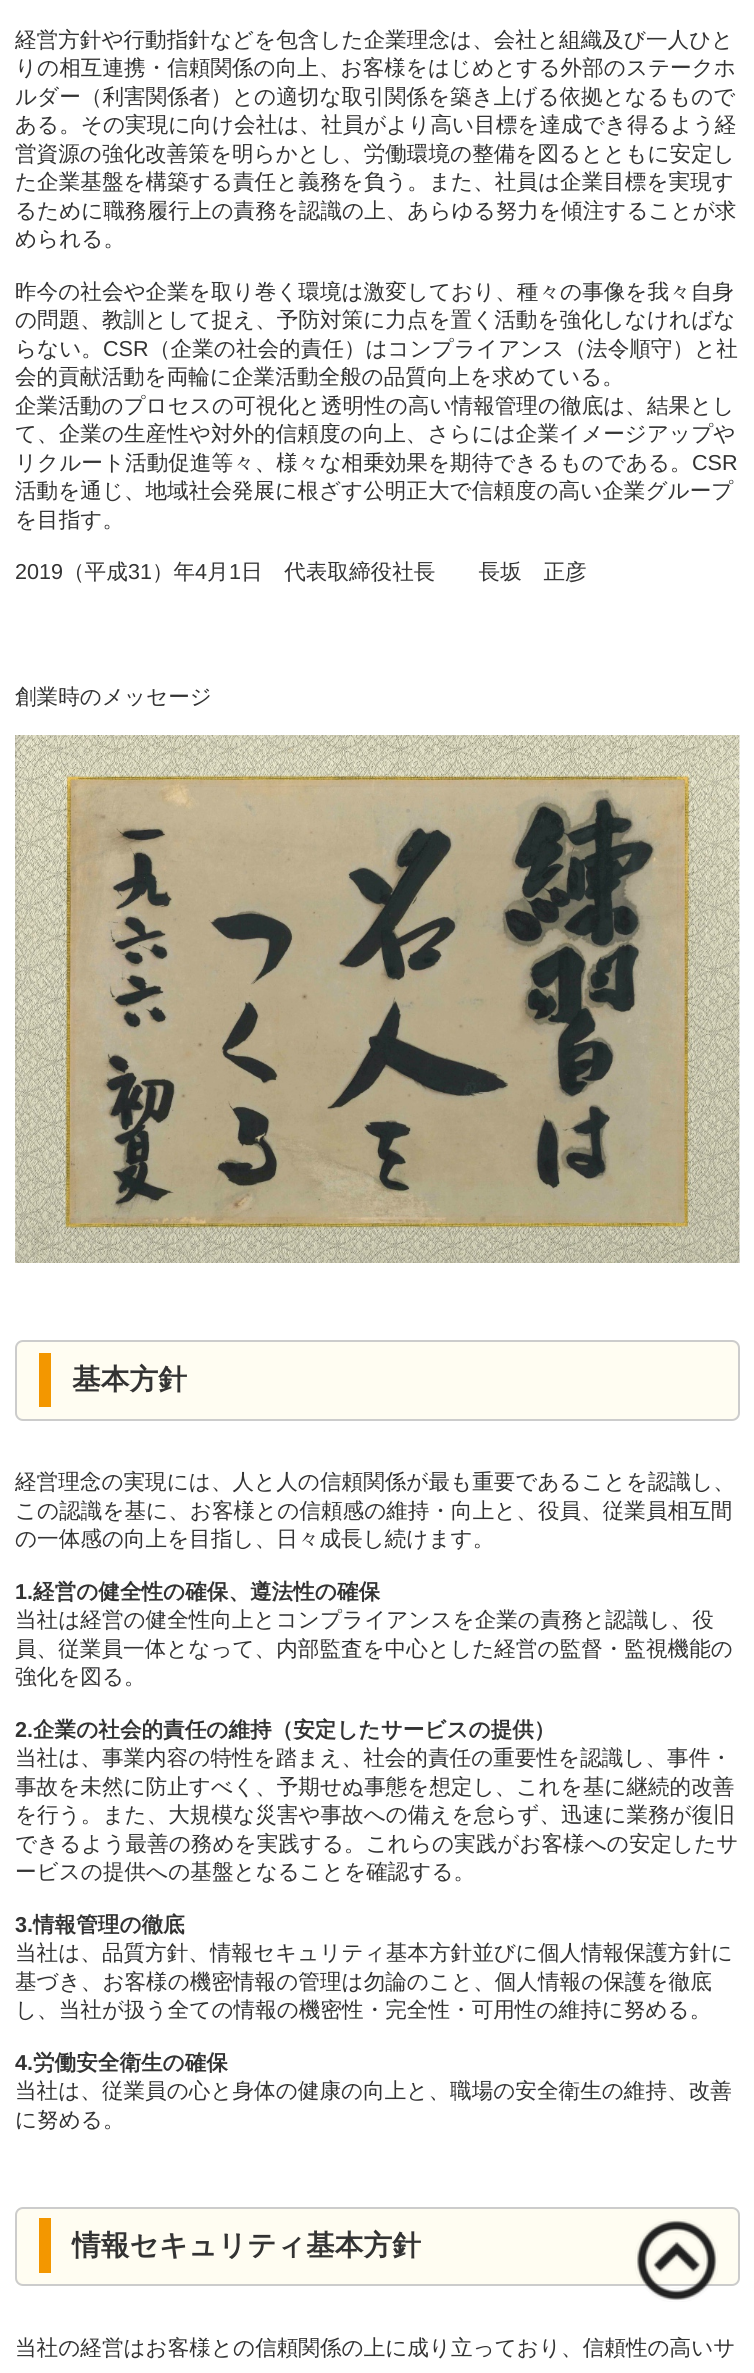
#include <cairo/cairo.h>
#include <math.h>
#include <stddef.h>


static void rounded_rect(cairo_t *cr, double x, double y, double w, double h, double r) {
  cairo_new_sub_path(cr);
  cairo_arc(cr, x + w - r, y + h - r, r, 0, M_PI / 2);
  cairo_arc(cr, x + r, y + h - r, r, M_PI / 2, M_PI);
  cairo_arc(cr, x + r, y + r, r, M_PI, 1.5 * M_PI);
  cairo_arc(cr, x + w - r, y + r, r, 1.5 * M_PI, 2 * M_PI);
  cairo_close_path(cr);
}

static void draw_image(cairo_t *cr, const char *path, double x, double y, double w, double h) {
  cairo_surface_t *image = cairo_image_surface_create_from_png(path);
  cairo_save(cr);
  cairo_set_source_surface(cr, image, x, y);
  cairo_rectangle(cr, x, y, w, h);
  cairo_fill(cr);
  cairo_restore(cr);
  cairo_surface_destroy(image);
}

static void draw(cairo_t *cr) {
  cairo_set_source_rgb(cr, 1, 1, 1);
  cairo_paint(cr);
  draw_image(cr, "images/1.png", 15, 735, 725, 528);
  cairo_set_source_rgb(cr, 1, 253 / 255.0, 242 / 255.0);
  rounded_rect(cr, 15, 1340, 725, 81, 8);
  cairo_fill(cr);
  cairo_set_source_rgb(cr, 243 / 255.0, 151 / 255.0, 0);
  cairo_rectangle(cr, 39, 1353, 12, 54);
  cairo_fill(cr);
  rounded_rect(cr, 16, 1341, 723, 79, 7);
  cairo_set_source_rgb(cr, 204 / 255.0, 204 / 255.0, 204 / 255.0);
  cairo_stroke(cr);
  cairo_set_source_rgb(cr, 1, 253 / 255.0, 242 / 255.0);
  rounded_rect(cr, 15, 2207, 725, 79, 8);
  cairo_fill(cr);
  cairo_set_source_rgb(cr, 243 / 255.0, 151 / 255.0, 0);
  cairo_rectangle(cr, 39, 2218, 12, 55);
  cairo_fill(cr);
  rounded_rect(cr, 16, 2208, 723, 77, 7);
  cairo_set_source_rgb(cr, 204 / 255.0, 204 / 255.0, 204 / 255.0);
  cairo_stroke(cr);
  draw_image(cr, "images/2.png", 635, 2219, 83, 83);
  cairo_select_font_face(cr, "WenQuanYi Zen Hei Medium", CAIRO_FONT_SLANT_NORMAL, CAIRO_FONT_WEIGHT_NORMAL);
  cairo_set_font_size(cr, 21.6);
  cairo_set_source_rgb(cr, 51 / 255.0, 51 / 255.0, 51 / 255.0);
  cairo_move_to(cr, 15, 47);
  cairo_show_text(cr, "経営方針や行動指針などを包含した企業理念は、会社と組織及び一人ひと");
  cairo_move_to(cr, 15, 75);
  cairo_show_text(cr, "りの相互連携・信頼関係の向上、お客様をはじめとする外部のステークホ");
  cairo_move_to(cr, 15, 104);
  cairo_show_text(cr, "ルダー（利害関係者）との適切な取引関係を築き上げる依拠となるもので");
  cairo_move_to(cr, 15, 132);
  cairo_show_text(cr, "ある。その実現に向け会社は、社員がより高い目標を達成でき得るよう経");
  cairo_move_to(cr, 15, 161);
  cairo_show_text(cr, "営資源の強化改善策を明らかとし、労働環境の整備を図るとともに安定し");
  cairo_move_to(cr, 15, 189);
  cairo_show_text(cr, "た企業基盤を構築する責任と義務を負う。また、社員は企業目標を実現す");
  cairo_move_to(cr, 15, 218);
  cairo_show_text(cr, "るために職務履行上の責務を認識の上、あらゆる努力を傾注することが求");
  cairo_move_to(cr, 15, 246);
  cairo_show_text(cr, "められる。");
  cairo_move_to(cr, 15, 299);
  cairo_show_text(cr, "昨今の社会や企業を取り巻く環境は激変しており、種々の事像を我々自身");
  cairo_move_to(cr, 15, 327);
  cairo_show_text(cr, "の問題、教訓として捉え、予防対策に力点を置く活動を強化しなければな");
  cairo_move_to(cr, 15, 356);
  cairo_show_text(cr, "らない。");
  cairo_select_font_face(cr, "Liberation Sans", CAIRO_FONT_SLANT_NORMAL, CAIRO_FONT_WEIGHT_NORMAL);
  cairo_move_to(cr, 103, 356);
  cairo_show_text(cr, "CSR");
  cairo_select_font_face(cr, "WenQuanYi Zen Hei Medium", CAIRO_FONT_SLANT_NORMAL, CAIRO_FONT_WEIGHT_NORMAL);
  cairo_move_to(cr, 149, 356);
  cairo_show_text(cr, "（企業の社会的責任）はコンプライアンス（法令順守）と社");
  cairo_move_to(cr, 15, 384);
  cairo_show_text(cr, "会的貢献活動を両輪に企業活動全般の品質向上を求めている。");
  cairo_move_to(cr, 15, 413);
  cairo_show_text(cr, "企業活動のプロセスの可視化と透明性の高い情報管理の徹底は、結果とし");
  cairo_move_to(cr, 15, 441);
  cairo_show_text(cr, "て、企業の生産性や対外的信頼度の向上、さらには企業イメージアップや");
  cairo_move_to(cr, 15, 470);
  cairo_show_text(cr, "リクルート活動促進等々、様々な相乗効果を期待できるものである。");
  cairo_select_font_face(cr, "Liberation Sans", CAIRO_FONT_SLANT_NORMAL, CAIRO_FONT_WEIGHT_NORMAL);
  cairo_move_to(cr, 692, 470);
  cairo_show_text(cr, "CSR");
  cairo_select_font_face(cr, "WenQuanYi Zen Hei Medium", CAIRO_FONT_SLANT_NORMAL, CAIRO_FONT_WEIGHT_NORMAL);
  cairo_move_to(cr, 15, 498);
  cairo_show_text(cr, "活動を通じ、地域社会発展に根ざす公明正大で信頼度の高い企業グループ");
  cairo_move_to(cr, 15, 527);
  cairo_show_text(cr, "を目指す。");
  cairo_select_font_face(cr, "Liberation Sans", CAIRO_FONT_SLANT_NORMAL, CAIRO_FONT_WEIGHT_NORMAL);
  cairo_move_to(cr, 15, 579);
  cairo_show_text(cr, "2019");
  cairo_select_font_face(cr, "WenQuanYi Zen Hei Medium", CAIRO_FONT_SLANT_NORMAL, CAIRO_FONT_WEIGHT_NORMAL);
  cairo_move_to(cr, 63, 579);
  cairo_show_text(cr, "（平成");
  cairo_select_font_face(cr, "Liberation Sans", CAIRO_FONT_SLANT_NORMAL, CAIRO_FONT_WEIGHT_NORMAL);
  cairo_move_to(cr, 128, 579);
  cairo_show_text(cr, "31");
  cairo_select_font_face(cr, "WenQuanYi Zen Hei Medium", CAIRO_FONT_SLANT_NORMAL, CAIRO_FONT_WEIGHT_NORMAL);
  cairo_move_to(cr, 152, 579);
  cairo_show_text(cr, "）年");
  cairo_select_font_face(cr, "Liberation Sans", CAIRO_FONT_SLANT_NORMAL, CAIRO_FONT_WEIGHT_NORMAL);
  cairo_move_to(cr, 195, 579);
  cairo_show_text(cr, "4");
  cairo_select_font_face(cr, "WenQuanYi Zen Hei Medium", CAIRO_FONT_SLANT_NORMAL, CAIRO_FONT_WEIGHT_NORMAL);
  cairo_move_to(cr, 207, 579);
  cairo_show_text(cr, "月");
  cairo_select_font_face(cr, "Liberation Sans", CAIRO_FONT_SLANT_NORMAL, CAIRO_FONT_WEIGHT_NORMAL);
  cairo_move_to(cr, 229, 579);
  cairo_show_text(cr, "1");
  cairo_select_font_face(cr, "WenQuanYi Zen Hei Medium", CAIRO_FONT_SLANT_NORMAL, CAIRO_FONT_WEIGHT_NORMAL);
  cairo_move_to(cr, 241, 579);
  cairo_show_text(cr, "日　代表取締役社長　　長坂　正彦");
  cairo_move_to(cr, 15, 704);
  cairo_show_text(cr, "創業時のメッセージ");
  cairo_select_font_face(cr, "WenQuanYi Zen Hei", CAIRO_FONT_SLANT_NORMAL, CAIRO_FONT_WEIGHT_BOLD);
  cairo_set_font_size(cr, 28.75);
  cairo_move_to(cr, 72, 1389);
  cairo_show_text(cr, "基本方針");
  cairo_select_font_face(cr, "WenQuanYi Zen Hei Medium", CAIRO_FONT_SLANT_NORMAL, CAIRO_FONT_WEIGHT_NORMAL);
  cairo_set_font_size(cr, 21.6);
  cairo_move_to(cr, 15, 1489);
  cairo_show_text(cr, "経営理念の実現には、人と人の信頼関係が最も重要であることを認識し、");
  cairo_move_to(cr, 15, 1518);
  cairo_show_text(cr, "この認識を基に、お客様との信頼感の維持・向上と、役員、従業員相互間");
  cairo_move_to(cr, 15, 1546);
  cairo_show_text(cr, "の一体感の向上を目指し、日々成長し続けます。");
  cairo_select_font_face(cr, "Liberation Sans", CAIRO_FONT_SLANT_NORMAL, CAIRO_FONT_WEIGHT_BOLD);
  cairo_move_to(cr, 15, 1599);
  cairo_show_text(cr, "1.");
  cairo_select_font_face(cr, "WenQuanYi Zen Hei", CAIRO_FONT_SLANT_NORMAL, CAIRO_FONT_WEIGHT_BOLD);
  cairo_move_to(cr, 33, 1599);
  cairo_show_text(cr, "経営の健全性の確保、遵法性の確保");
  cairo_select_font_face(cr, "WenQuanYi Zen Hei Medium", CAIRO_FONT_SLANT_NORMAL, CAIRO_FONT_WEIGHT_NORMAL);
  cairo_move_to(cr, 15, 1627);
  cairo_show_text(cr, "当社は経営の健全性向上とコンプライアンスを企業の責務と認識し、役");
  cairo_move_to(cr, 15, 1656);
  cairo_show_text(cr, "員、従業員一体となって、内部監査を中心とした経営の監督・監視機能の");
  cairo_move_to(cr, 15, 1684);
  cairo_show_text(cr, "強化を図る。");
  cairo_select_font_face(cr, "Liberation Sans", CAIRO_FONT_SLANT_NORMAL, CAIRO_FONT_WEIGHT_BOLD);
  cairo_move_to(cr, 15, 1737);
  cairo_show_text(cr, "2.");
  cairo_select_font_face(cr, "WenQuanYi Zen Hei", CAIRO_FONT_SLANT_NORMAL, CAIRO_FONT_WEIGHT_BOLD);
  cairo_move_to(cr, 33, 1737);
  cairo_show_text(cr, "企業の社会的責任の維持（安定したサービスの提供）");
  cairo_select_font_face(cr, "WenQuanYi Zen Hei Medium", CAIRO_FONT_SLANT_NORMAL, CAIRO_FONT_WEIGHT_NORMAL);
  cairo_move_to(cr, 15, 1765);
  cairo_show_text(cr, "当社は、事業内容の特性を踏まえ、社会的責任の重要性を認識し、事件・");
  cairo_move_to(cr, 15, 1794);
  cairo_show_text(cr, "事故を未然に防止すべく、予期せぬ事態を想定し、これを基に継続的改善");
  cairo_move_to(cr, 15, 1822);
  cairo_show_text(cr, "を行う。また、大規模な災害や事故への備えを怠らず、迅速に業務が復旧");
  cairo_move_to(cr, 15, 1851);
  cairo_show_text(cr, "できるよう最善の務めを実践する。これらの実践がお客様への安定したサ");
  cairo_move_to(cr, 15, 1879);
  cairo_show_text(cr, "ービスの提供への基盤となることを確認する。");
  cairo_select_font_face(cr, "Liberation Sans", CAIRO_FONT_SLANT_NORMAL, CAIRO_FONT_WEIGHT_BOLD);
  cairo_move_to(cr, 15, 1932);
  cairo_show_text(cr, "3.");
  cairo_select_font_face(cr, "WenQuanYi Zen Hei", CAIRO_FONT_SLANT_NORMAL, CAIRO_FONT_WEIGHT_BOLD);
  cairo_move_to(cr, 33, 1932);
  cairo_show_text(cr, "情報管理の徹底");
  cairo_select_font_face(cr, "WenQuanYi Zen Hei Medium", CAIRO_FONT_SLANT_NORMAL, CAIRO_FONT_WEIGHT_NORMAL);
  cairo_move_to(cr, 15, 1960);
  cairo_show_text(cr, "当社は、品質方針、情報セキュリティ基本方針並びに個人情報保護方針に");
  cairo_move_to(cr, 15, 1989);
  cairo_show_text(cr, "基づき、お客様の機密情報の管理は勿論のこと、個人情報の保護を徹底");
  cairo_move_to(cr, 15, 2017);
  cairo_show_text(cr, "し、当社が扱う全ての情報の機密性・完全性・可用性の維持に努める。");
  cairo_select_font_face(cr, "Liberation Sans", CAIRO_FONT_SLANT_NORMAL, CAIRO_FONT_WEIGHT_BOLD);
  cairo_move_to(cr, 15, 2070);
  cairo_show_text(cr, "4.");
  cairo_select_font_face(cr, "WenQuanYi Zen Hei", CAIRO_FONT_SLANT_NORMAL, CAIRO_FONT_WEIGHT_BOLD);
  cairo_move_to(cr, 33, 2070);
  cairo_show_text(cr, "労働安全衛生の確保");
  cairo_select_font_face(cr, "WenQuanYi Zen Hei Medium", CAIRO_FONT_SLANT_NORMAL, CAIRO_FONT_WEIGHT_NORMAL);
  cairo_move_to(cr, 15, 2098);
  cairo_show_text(cr, "当社は、従業員の心と身体の健康の向上と、職場の安全衛生の維持、改善");
  cairo_move_to(cr, 15, 2127);
  cairo_show_text(cr, "に努める。");
  cairo_select_font_face(cr, "WenQuanYi Zen Hei", CAIRO_FONT_SLANT_NORMAL, CAIRO_FONT_WEIGHT_BOLD);
  cairo_set_font_size(cr, 28.75);
  cairo_move_to(cr, 72, 2255);
  cairo_show_text(cr, "情報セキュリティ基本方針");
  cairo_select_font_face(cr, "WenQuanYi Zen Hei Medium", CAIRO_FONT_SLANT_NORMAL, CAIRO_FONT_WEIGHT_NORMAL);
  cairo_set_font_size(cr, 21.6);
  cairo_move_to(cr, 15, 2355);
  cairo_show_text(cr, "当社の経営はお客様との信頼関係の上に成り立っており、信頼性の高いサ");
}

int main(void) {
  cairo_surface_t *surface = cairo_image_surface_create(CAIRO_FORMAT_RGB24, 754, 2373);
  cairo_t *cr = cairo_create(surface);
  cairo_font_options_t *options = cairo_font_options_create();
  cairo_font_options_set_hint_metrics(options, CAIRO_HINT_METRICS_OFF);
  cairo_font_options_set_hint_style(options, CAIRO_HINT_STYLE_NONE);
  cairo_set_font_options(cr, options);
  cairo_set_miter_limit(cr, 4);
  draw(cr);
  cairo_surface_write_to_png(surface, "out.png");
  cairo_font_options_destroy(options);
  cairo_destroy(cr);
  cairo_surface_destroy(surface);
  return 0;
}
